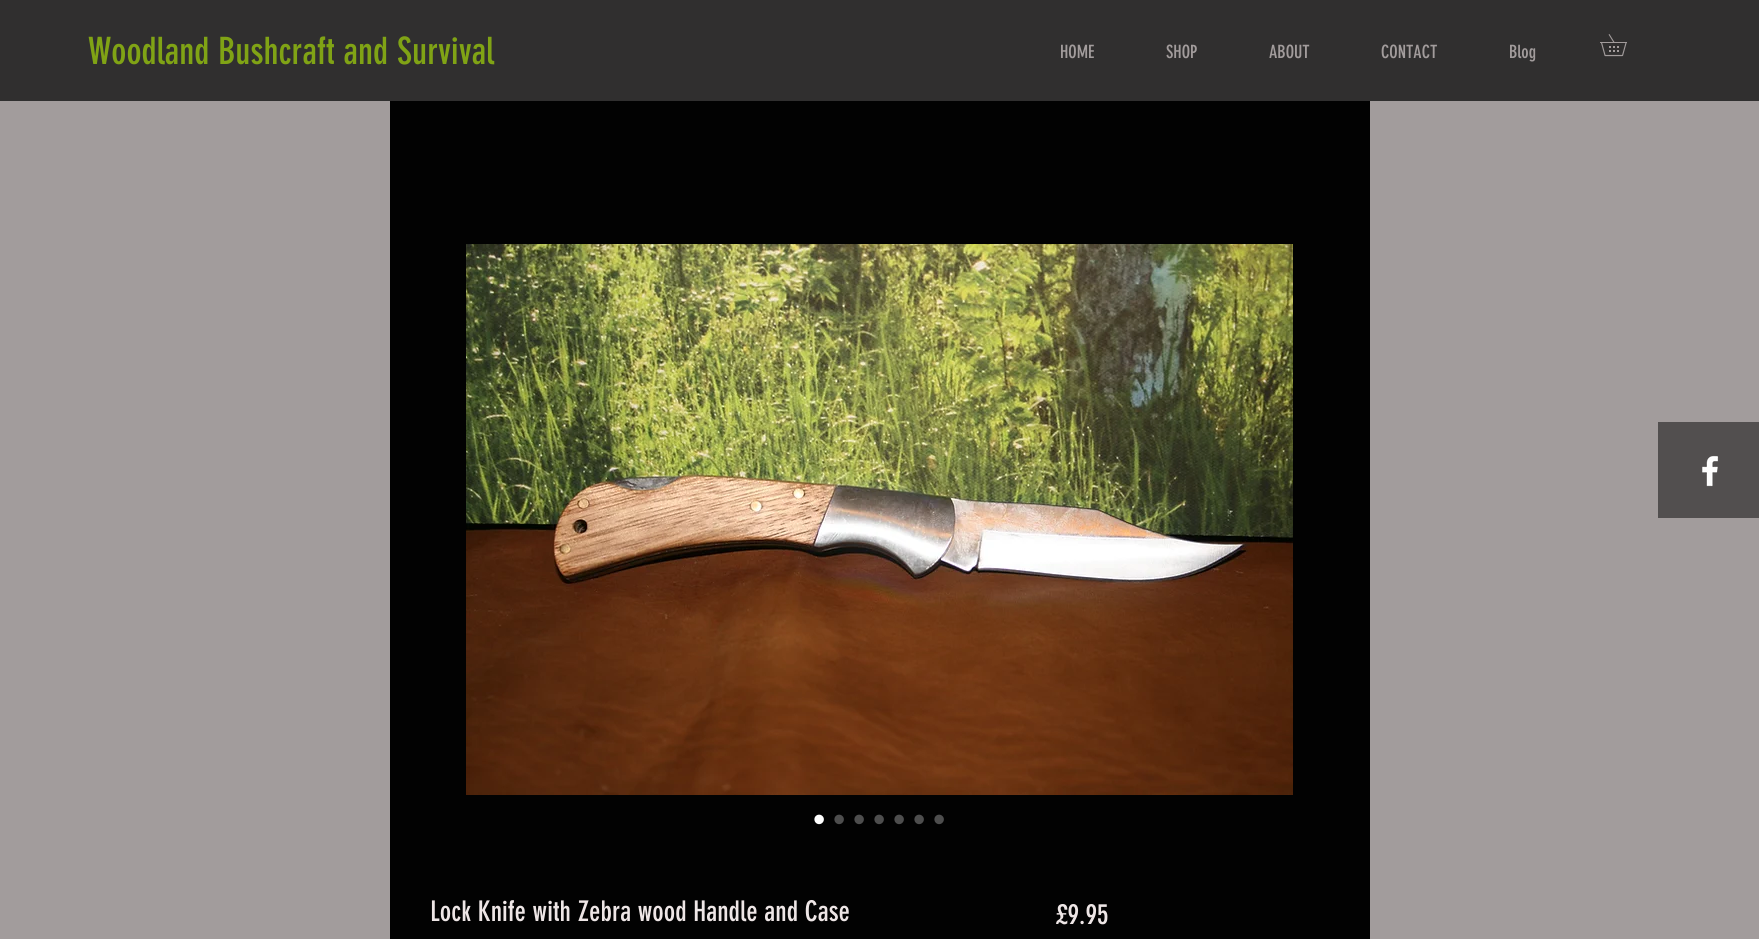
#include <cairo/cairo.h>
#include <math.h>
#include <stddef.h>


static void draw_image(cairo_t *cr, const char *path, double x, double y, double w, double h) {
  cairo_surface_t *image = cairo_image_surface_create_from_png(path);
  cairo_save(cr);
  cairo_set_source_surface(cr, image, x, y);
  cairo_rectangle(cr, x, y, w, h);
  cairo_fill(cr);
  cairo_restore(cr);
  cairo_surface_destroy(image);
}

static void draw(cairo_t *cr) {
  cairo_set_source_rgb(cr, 162 / 255.0, 156 / 255.0, 156 / 255.0);
  cairo_paint(cr);
  cairo_set_source_rgb(cr, 48 / 255.0, 47 / 255.0, 47 / 255.0);
  cairo_rectangle(cr, 0, 0, 1759, 101);
  cairo_fill(cr);
  draw_image(cr, "images/1.png", 1600, 34, 27, 23);
  cairo_set_source_rgb(cr, 82 / 255.0, 79 / 255.0, 79 / 255.0);
  cairo_rectangle(cr, 1658, 422, 101, 96);
  cairo_fill(cr);
  draw_image(cr, "images/2.png", 1702, 455, 17, 32);
  cairo_set_source_rgb(cr, 2 / 255.0, 2 / 255.0, 2 / 255.0);
  cairo_rectangle(cr, 390, 101, 980, 838);
  cairo_fill(cr);
  draw_image(cr, "images/3.png", 466, 244, 827, 551);
  cairo_select_font_face(cr, "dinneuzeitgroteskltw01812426", CAIRO_FONT_SLANT_NORMAL, CAIRO_FONT_WEIGHT_NORMAL);
  cairo_set_font_size(cr, 37);
  cairo_set_source_rgb(cr, 128 / 255.0, 163 / 255.0, 21 / 255.0);
  cairo_move_to(cr, 88, 64);
  cairo_show_text(cr, "Woodland Bushcraft and Survival");
  cairo_set_font_size(cr, 18);
  cairo_set_source_rgb(cr, 162 / 255.0, 156 / 255.0, 156 / 255.0);
  cairo_move_to(cr, 1060, 58);
  cairo_show_text(cr, "HOME");
  cairo_move_to(cr, 1166, 58);
  cairo_show_text(cr, "SHOP");
  cairo_move_to(cr, 1269, 58);
  cairo_show_text(cr, "ABOUT");
  cairo_move_to(cr, 1381, 58);
  cairo_show_text(cr, "CONTACT");
  cairo_move_to(cr, 1509, 58);
  cairo_show_text(cr, "Blog");
  cairo_select_font_face(cr, "Liberation Sans", CAIRO_FONT_SLANT_NORMAL, CAIRO_FONT_WEIGHT_NORMAL);
  cairo_set_font_size(cr, 35);
  cairo_set_source_rgb(cr, 1, 1, 1);
  cairo_move_to(cr, 813, 831);
  cairo_show_text(cr, "•");
  cairo_set_source_rgb(cr, 78 / 255.0, 78 / 255.0, 78 / 255.0);
  cairo_move_to(cr, 833, 831);
  cairo_show_text(cr, "•");
  cairo_move_to(cr, 853, 831);
  cairo_show_text(cr, "•");
  cairo_move_to(cr, 873, 831);
  cairo_show_text(cr, "•");
  cairo_move_to(cr, 893, 831);
  cairo_show_text(cr, "•");
  cairo_move_to(cr, 913, 831);
  cairo_show_text(cr, "•");
  cairo_move_to(cr, 933, 831);
  cairo_show_text(cr, "•");
  cairo_select_font_face(cr, "dinneuzeitgroteskltw01812426", CAIRO_FONT_SLANT_NORMAL, CAIRO_FONT_WEIGHT_NORMAL);
  cairo_set_font_size(cr, 28);
  cairo_set_source_rgb(cr, 238 / 255.0, 230 / 255.0, 230 / 255.0);
  cairo_move_to(cr, 430, 921);
  cairo_show_text(cr, "Lock Knife with Zebra wood Handle and Case");
  cairo_move_to(cr, 1056, 924);
  cairo_show_text(cr, "£9.95");
}

int main(void) {
  cairo_surface_t *surface = cairo_image_surface_create(CAIRO_FORMAT_RGB24, 1759, 939);
  cairo_t *cr = cairo_create(surface);
  cairo_font_options_t *options = cairo_font_options_create();
  cairo_font_options_set_hint_metrics(options, CAIRO_HINT_METRICS_OFF);
  cairo_font_options_set_hint_style(options, CAIRO_HINT_STYLE_NONE);
  cairo_set_font_options(cr, options);
  cairo_set_miter_limit(cr, 4);
  draw(cr);
  cairo_surface_write_to_png(surface, "out.png");
  cairo_font_options_destroy(options);
  cairo_destroy(cr);
  cairo_surface_destroy(surface);
  return 0;
}
